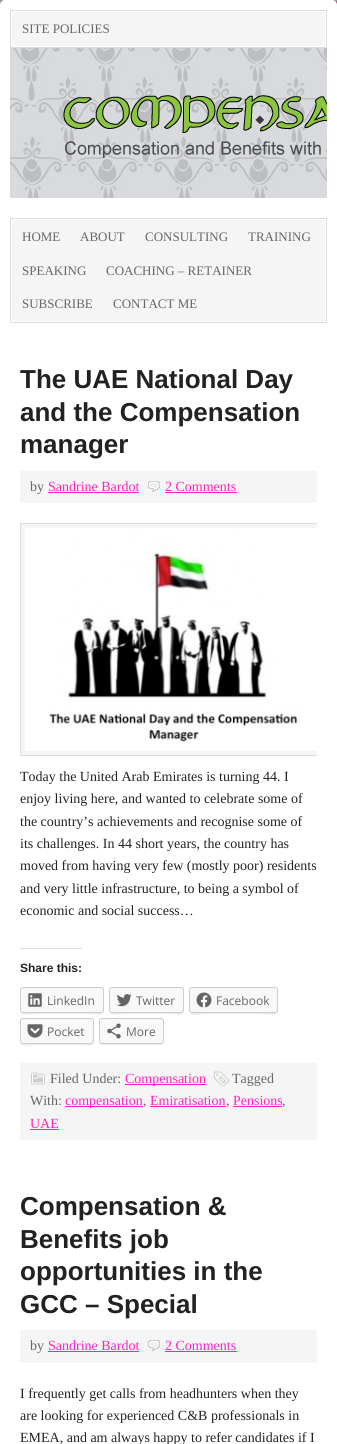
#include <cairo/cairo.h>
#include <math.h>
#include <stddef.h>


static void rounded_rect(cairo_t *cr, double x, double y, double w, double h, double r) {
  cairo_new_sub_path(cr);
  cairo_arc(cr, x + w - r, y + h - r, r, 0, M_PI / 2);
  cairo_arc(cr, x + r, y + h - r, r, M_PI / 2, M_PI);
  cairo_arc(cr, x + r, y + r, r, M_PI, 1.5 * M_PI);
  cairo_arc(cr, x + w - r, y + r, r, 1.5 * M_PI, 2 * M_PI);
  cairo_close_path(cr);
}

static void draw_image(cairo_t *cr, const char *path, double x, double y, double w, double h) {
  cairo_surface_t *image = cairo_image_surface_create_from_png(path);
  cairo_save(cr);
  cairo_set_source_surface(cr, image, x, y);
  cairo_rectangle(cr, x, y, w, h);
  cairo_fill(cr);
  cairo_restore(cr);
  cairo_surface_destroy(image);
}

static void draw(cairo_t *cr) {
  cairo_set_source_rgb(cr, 1, 1, 1);
  cairo_paint(cr);
  draw_image(cr, "images/1.png", 0, 0, 337, 5);
  cairo_set_source_rgb(cr, 1, 1, 1);
  rounded_rect(cr, 0, 0, 337, 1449, 5);
  cairo_fill(cr);
  cairo_set_source_rgb(cr, 245 / 255.0, 245 / 255.0, 245 / 255.0);
  cairo_rectangle(cr, 12, 12, 313, 34);
  cairo_fill(cr);
  cairo_rectangle(cr, 10.5, 10.5, 316, 37);
  cairo_set_source_rgb(cr, 221 / 255.0, 221 / 255.0, 221 / 255.0);
  cairo_set_line_width(cr, 1);
  cairo_stroke(cr);
  draw_image(cr, "images/2.png", 10, 48, 317, 150);
  cairo_set_source_rgb(cr, 245 / 255.0, 245 / 255.0, 245 / 255.0);
  cairo_rectangle(cr, 12, 220, 313, 101);
  cairo_fill(cr);
  cairo_rectangle(cr, 10.5, 218.5, 316, 104);
  cairo_set_source_rgb(cr, 221 / 255.0, 221 / 255.0, 221 / 255.0);
  cairo_stroke(cr);
  cairo_set_source_rgb(cr, 245 / 255.0, 245 / 255.0, 245 / 255.0);
  cairo_rectangle(cr, 20, 471, 297, 32);
  cairo_fill(cr);
  cairo_set_source_rgb(cr, 1, 33 / 255.0, 196 / 255.0);
  cairo_rectangle(cr, 48, 492, 91, 1);
  cairo_fill(cr);
  draw_image(cr, "images/3.png", 148, 481, 12, 11);
  cairo_rectangle(cr, 165, 492, 72, 1);
  cairo_fill(cr);
  cairo_set_source_rgb(cr, 245 / 255.0, 245 / 255.0, 245 / 255.0);
  cairo_rectangle(cr, 21, 524, 296, 231);
  cairo_fill(cr);
  cairo_save(cr);
  cairo_rectangle(cr, 20, 523, 297, 540);
  cairo_clip(cr);
  cairo_rectangle(cr, 20.5, 523.5, 306, 232);
  cairo_set_source_rgb(cr, 221 / 255.0, 221 / 255.0, 221 / 255.0);
  cairo_stroke(cr);
  cairo_restore(cr);
  draw_image(cr, "images/4.png", 25, 528, 292, 223);
  cairo_set_source_rgb(cr, 220 / 255.0, 220 / 255.0, 222 / 255.0);
  cairo_rectangle(cr, 20, 948, 62, 1);
  cairo_fill(cr);
  cairo_set_source_rgb(cr, 235 / 255.0, 235 / 255.0, 235 / 255.0);
  cairo_new_path(cr);
  cairo_move_to(cr, 20, 1010);
  cairo_curve_to(cr, 20, 1017, 32, 1014, 36, 1014);
  cairo_line_to(cr, 88, 1014);
  cairo_curve_to(cr, 92, 1014, 104, 1017, 104, 1010);
  cairo_curve_to(cr, 104, 1012, 103, 1013, 101, 1013);
  cairo_line_to(cr, 23, 1013);
  cairo_curve_to(cr, 21, 1013, 20, 1012, 20, 1010);
  cairo_close_path(cr);
  cairo_fill(cr);
  cairo_set_source_rgb(cr, 248 / 255.0, 248 / 255.0, 248 / 255.0);
  rounded_rect(cr, 20.5, 987.5, 83, 25, 2.5);
  cairo_fill_preserve(cr);
  cairo_set_source_rgb(cr, 204 / 255.0, 204 / 255.0, 204 / 255.0);
  cairo_stroke(cr);
  draw_image(cr, "images/5.png", 28, 993, 14, 14);
  cairo_set_source_rgb(cr, 235 / 255.0, 235 / 255.0, 235 / 255.0);
  cairo_new_path(cr);
  cairo_move_to(cr, 109, 1010);
  cairo_curve_to(cr, 109, 1017, 119, 1014, 124, 1014);
  cairo_line_to(cr, 170, 1014);
  cairo_curve_to(cr, 174, 1014, 184, 1017, 184, 1010);
  cairo_curve_to(cr, 184, 1012, 183, 1013, 181, 1013);
  cairo_line_to(cr, 112, 1013);
  cairo_curve_to(cr, 110, 1013, 109, 1012, 109, 1010);
  cairo_close_path(cr);
  cairo_fill(cr);
  cairo_set_source_rgb(cr, 248 / 255.0, 248 / 255.0, 248 / 255.0);
  rounded_rect(cr, 109.5, 987.5, 74, 25, 2.5);
  cairo_fill_preserve(cr);
  cairo_set_source_rgb(cr, 204 / 255.0, 204 / 255.0, 204 / 255.0);
  cairo_stroke(cr);
  draw_image(cr, "images/6.png", 116, 994, 16, 13);
  cairo_set_source_rgb(cr, 235 / 255.0, 235 / 255.0, 235 / 255.0);
  cairo_new_path(cr);
  cairo_move_to(cr, 189, 1010);
  cairo_curve_to(cr, 189, 1018, 202, 1014, 206, 1014);
  cairo_line_to(cr, 261, 1014);
  cairo_curve_to(cr, 265, 1014, 278, 1018, 278, 1010);
  cairo_curve_to(cr, 278, 1012, 277, 1013, 275, 1013);
  cairo_line_to(cr, 192, 1013);
  cairo_curve_to(cr, 190, 1013, 189, 1012, 189, 1010);
  cairo_close_path(cr);
  cairo_fill(cr);
  cairo_set_source_rgb(cr, 248 / 255.0, 248 / 255.0, 248 / 255.0);
  rounded_rect(cr, 189.5, 987.5, 88, 25, 2.5);
  cairo_fill_preserve(cr);
  cairo_set_source_rgb(cr, 204 / 255.0, 204 / 255.0, 204 / 255.0);
  cairo_stroke(cr);
  draw_image(cr, "images/7.png", 196, 992, 16, 16);
  cairo_set_source_rgb(cr, 235 / 255.0, 235 / 255.0, 235 / 255.0);
  cairo_new_path(cr);
  cairo_move_to(cr, 20, 1041);
  cairo_curve_to(cr, 20, 1048, 30, 1045, 34, 1045);
  cairo_line_to(cr, 80, 1045);
  cairo_curve_to(cr, 84, 1045, 94, 1048, 94, 1041);
  cairo_curve_to(cr, 94, 1043, 93, 1044, 91, 1044);
  cairo_line_to(cr, 23, 1044);
  cairo_curve_to(cr, 21, 1044, 20, 1043, 20, 1041);
  cairo_close_path(cr);
  cairo_fill(cr);
  cairo_set_source_rgb(cr, 248 / 255.0, 248 / 255.0, 248 / 255.0);
  rounded_rect(cr, 20.5, 1018.5, 73, 25, 2.5);
  cairo_fill_preserve(cr);
  cairo_set_source_rgb(cr, 204 / 255.0, 204 / 255.0, 204 / 255.0);
  cairo_stroke(cr);
  draw_image(cr, "images/8.png", 27, 1024, 16, 14);
  cairo_set_source_rgb(cr, 235 / 255.0, 235 / 255.0, 235 / 255.0);
  cairo_new_path(cr);
  cairo_move_to(cr, 99, 1041);
  cairo_curve_to(cr, 99, 1047, 107, 1045, 112, 1045);
  cairo_line_to(cr, 151, 1045);
  cairo_curve_to(cr, 156, 1045, 164, 1047, 164, 1041);
  cairo_curve_to(cr, 164, 1043, 163, 1044, 161, 1044);
  cairo_line_to(cr, 102, 1044);
  cairo_curve_to(cr, 100, 1044, 99, 1043, 99, 1041);
  cairo_close_path(cr);
  cairo_fill(cr);
  cairo_set_source_rgb(cr, 248 / 255.0, 248 / 255.0, 248 / 255.0);
  rounded_rect(cr, 99.5, 1018.5, 64, 25, 2.5);
  cairo_fill_preserve(cr);
  cairo_set_source_rgb(cr, 204 / 255.0, 204 / 255.0, 204 / 255.0);
  cairo_stroke(cr);
  draw_image(cr, "images/9.png", 107, 1023, 14, 16);
  cairo_set_source_rgb(cr, 245 / 255.0, 245 / 255.0, 245 / 255.0);
  cairo_rectangle(cr, 20, 1063, 297, 77);
  cairo_fill(cr);
  draw_image(cr, "images/10.png", 30, 1072, 15, 13);
  cairo_set_source_rgb(cr, 1, 33 / 255.0, 196 / 255.0);
  cairo_rectangle(cr, 125, 1084, 81, 1);
  cairo_fill(cr);
  draw_image(cr, "images/11.png", 214, 1071, 16, 15);
  cairo_rectangle(cr, 65, 1106, 78, 1);
  cairo_fill(cr);
  cairo_rectangle(cr, 150, 1106, 76, 1);
  cairo_fill(cr);
  cairo_rectangle(cr, 233, 1106, 49, 1);
  cairo_fill(cr);
  cairo_rectangle(cr, 30, 1129, 29, 1);
  cairo_fill(cr);
  cairo_set_source_rgb(cr, 245 / 255.0, 245 / 255.0, 245 / 255.0);
  cairo_rectangle(cr, 20, 1330, 297, 33);
  cairo_fill(cr);
  cairo_set_source_rgb(cr, 1, 33 / 255.0, 196 / 255.0);
  cairo_rectangle(cr, 48, 1351, 91, 1);
  cairo_fill(cr);
  draw_image(cr, "images/3.png", 148, 1340, 12, 11);
  cairo_rectangle(cr, 165, 1351, 72, 1);
  cairo_fill(cr);
  cairo_select_font_face(cr, "Liberation Serif", CAIRO_FONT_SLANT_NORMAL, CAIRO_FONT_WEIGHT_NORMAL);
  cairo_set_font_size(cr, 13);
  cairo_set_source_rgb(cr, 102 / 255.0, 102 / 255.0, 102 / 255.0);
  cairo_move_to(cr, 22, 33);
  cairo_show_text(cr, "SITE POLICIES");
  cairo_move_to(cr, 22, 241);
  cairo_show_text(cr, "HOME");
  cairo_move_to(cr, 80, 241);
  cairo_show_text(cr, "ABOUT");
  cairo_move_to(cr, 145, 241);
  cairo_show_text(cr, "CONSULTING");
  cairo_move_to(cr, 248, 241);
  cairo_show_text(cr, "TRAINING");
  cairo_move_to(cr, 22, 275);
  cairo_show_text(cr, "SPEAKING");
  cairo_move_to(cr, 106, 275);
  cairo_show_text(cr, "COACHING – RETAINER");
  cairo_move_to(cr, 22, 308);
  cairo_show_text(cr, "SUBSCRIBE");
  cairo_move_to(cr, 113, 308);
  cairo_show_text(cr, "CONTACT ME");
  cairo_select_font_face(cr, "Liberation Sans", CAIRO_FONT_SLANT_NORMAL, CAIRO_FONT_WEIGHT_BOLD);
  cairo_set_font_size(cr, 26);
  cairo_set_source_rgb(cr, 34 / 255.0, 34 / 255.0, 34 / 255.0);
  cairo_move_to(cr, 20, 388);
  cairo_show_text(cr, "The UAE National Day");
  cairo_move_to(cr, 20, 421);
  cairo_show_text(cr, "and the Compensation");
  cairo_move_to(cr, 20, 453);
  cairo_show_text(cr, "manager");
  cairo_select_font_face(cr, "Liberation Serif", CAIRO_FONT_SLANT_NORMAL, CAIRO_FONT_WEIGHT_NORMAL);
  cairo_set_font_size(cr, 14);
  cairo_set_source_rgb(cr, 102 / 255.0, 102 / 255.0, 102 / 255.0);
  cairo_move_to(cr, 30, 491);
  cairo_show_text(cr, "by");
  cairo_set_source_rgb(cr, 1, 33 / 255.0, 196 / 255.0);
  cairo_move_to(cr, 48, 491);
  cairo_show_text(cr, "Sandrine Bardot");
  cairo_move_to(cr, 165, 491);
  cairo_show_text(cr, "2 Comments");
  cairo_set_source_rgb(cr, 34 / 255.0, 34 / 255.0, 34 / 255.0);
  cairo_move_to(cr, 20, 781);
  cairo_show_text(cr, "Today the United Arab Emirates is turning 44. I");
  cairo_move_to(cr, 20, 803);
  cairo_show_text(cr, "enjoy living here, and wanted to celebrate some of");
  cairo_move_to(cr, 20, 826);
  cairo_show_text(cr, "the country’s achievements and recognise some of");
  cairo_move_to(cr, 20, 848);
  cairo_show_text(cr, "its challenges. In 44 short years, the country has");
  cairo_move_to(cr, 20, 870);
  cairo_show_text(cr, "moved from having very few (mostly poor) residents");
  cairo_move_to(cr, 20, 893);
  cairo_show_text(cr, "and very little infrastructure, to being a symbol of");
  cairo_move_to(cr, 20, 915);
  cairo_show_text(cr, "economic and social success…");
  cairo_select_font_face(cr, "Liberation Sans", CAIRO_FONT_SLANT_NORMAL, CAIRO_FONT_WEIGHT_BOLD);
  cairo_set_font_size(cr, 12);
  cairo_move_to(cr, 20, 972);
  cairo_show_text(cr, "Share this:");
  cairo_select_font_face(cr, "Open Sans", CAIRO_FONT_SLANT_NORMAL, CAIRO_FONT_WEIGHT_NORMAL);
  cairo_set_source_rgb(cr, 102 / 255.0, 102 / 255.0, 102 / 255.0);
  cairo_move_to(cr, 47, 1005);
  cairo_show_text(cr, "LinkedIn");
  cairo_move_to(cr, 136, 1005);
  cairo_show_text(cr, "Twitter");
  cairo_move_to(cr, 216, 1005);
  cairo_show_text(cr, "Facebook");
  cairo_move_to(cr, 47, 1036);
  cairo_show_text(cr, "Pocket");
  cairo_move_to(cr, 126, 1036);
  cairo_show_text(cr, "More");
  cairo_select_font_face(cr, "Liberation Serif", CAIRO_FONT_SLANT_NORMAL, CAIRO_FONT_WEIGHT_NORMAL);
  cairo_set_font_size(cr, 14);
  cairo_move_to(cr, 50, 1083);
  cairo_show_text(cr, "Filed Under:");
  cairo_set_source_rgb(cr, 1, 33 / 255.0, 196 / 255.0);
  cairo_move_to(cr, 125, 1083);
  cairo_show_text(cr, "Compensation");
  cairo_set_source_rgb(cr, 102 / 255.0, 102 / 255.0, 102 / 255.0);
  cairo_move_to(cr, 232, 1083);
  cairo_show_text(cr, "Tagged");
  cairo_move_to(cr, 30, 1105);
  cairo_show_text(cr, "With:");
  cairo_set_source_rgb(cr, 1, 33 / 255.0, 196 / 255.0);
  cairo_move_to(cr, 65, 1105);
  cairo_show_text(cr, "compensation");
  cairo_set_source_rgb(cr, 102 / 255.0, 102 / 255.0, 102 / 255.0);
  cairo_move_to(cr, 143, 1105);
  cairo_show_text(cr, ",");
  cairo_set_source_rgb(cr, 1, 33 / 255.0, 196 / 255.0);
  cairo_move_to(cr, 150, 1105);
  cairo_show_text(cr, "Emiratisation");
  cairo_set_source_rgb(cr, 102 / 255.0, 102 / 255.0, 102 / 255.0);
  cairo_move_to(cr, 226, 1105);
  cairo_show_text(cr, ",");
  cairo_set_source_rgb(cr, 1, 33 / 255.0, 196 / 255.0);
  cairo_move_to(cr, 233, 1105);
  cairo_show_text(cr, "Pensions");
  cairo_set_source_rgb(cr, 102 / 255.0, 102 / 255.0, 102 / 255.0);
  cairo_move_to(cr, 282, 1105);
  cairo_show_text(cr, ",");
  cairo_set_source_rgb(cr, 1, 33 / 255.0, 196 / 255.0);
  cairo_move_to(cr, 30, 1128);
  cairo_show_text(cr, "UAE");
  cairo_select_font_face(cr, "Liberation Sans", CAIRO_FONT_SLANT_NORMAL, CAIRO_FONT_WEIGHT_BOLD);
  cairo_set_font_size(cr, 26);
  cairo_set_source_rgb(cr, 34 / 255.0, 34 / 255.0, 34 / 255.0);
  cairo_move_to(cr, 20, 1215);
  cairo_show_text(cr, "Compensation &");
  cairo_move_to(cr, 20, 1248);
  cairo_show_text(cr, "Benefits job");
  cairo_move_to(cr, 20, 1280);
  cairo_show_text(cr, "opportunities in the");
  cairo_move_to(cr, 20, 1313);
  cairo_show_text(cr, "GCC – Special");
  cairo_select_font_face(cr, "Liberation Serif", CAIRO_FONT_SLANT_NORMAL, CAIRO_FONT_WEIGHT_NORMAL);
  cairo_set_font_size(cr, 14);
  cairo_set_source_rgb(cr, 102 / 255.0, 102 / 255.0, 102 / 255.0);
  cairo_move_to(cr, 30, 1350);
  cairo_show_text(cr, "by");
  cairo_set_source_rgb(cr, 1, 33 / 255.0, 196 / 255.0);
  cairo_move_to(cr, 48, 1350);
  cairo_show_text(cr, "Sandrine Bardot");
  cairo_move_to(cr, 165, 1350);
  cairo_show_text(cr, "2 Comments");
  cairo_set_source_rgb(cr, 34 / 255.0, 34 / 255.0, 34 / 255.0);
  cairo_move_to(cr, 20, 1398);
  cairo_show_text(cr, "I frequently get calls from headhunters when they");
  cairo_move_to(cr, 20, 1420);
  cairo_show_text(cr, "are looking for experienced C&B professionals in");
  cairo_move_to(cr, 20, 1442);
  cairo_show_text(cr, "EMEA, and am always happy to refer candidates if I");
}

int main(void) {
  cairo_surface_t *surface = cairo_image_surface_create(CAIRO_FORMAT_RGB24, 337, 1444);
  cairo_t *cr = cairo_create(surface);
  cairo_font_options_t *options = cairo_font_options_create();
  cairo_font_options_set_hint_metrics(options, CAIRO_HINT_METRICS_OFF);
  cairo_font_options_set_hint_style(options, CAIRO_HINT_STYLE_NONE);
  cairo_set_font_options(cr, options);
  cairo_set_miter_limit(cr, 4);
  draw(cr);
  cairo_surface_write_to_png(surface, "out.png");
  cairo_font_options_destroy(options);
  cairo_destroy(cr);
  cairo_surface_destroy(surface);
  return 0;
}
